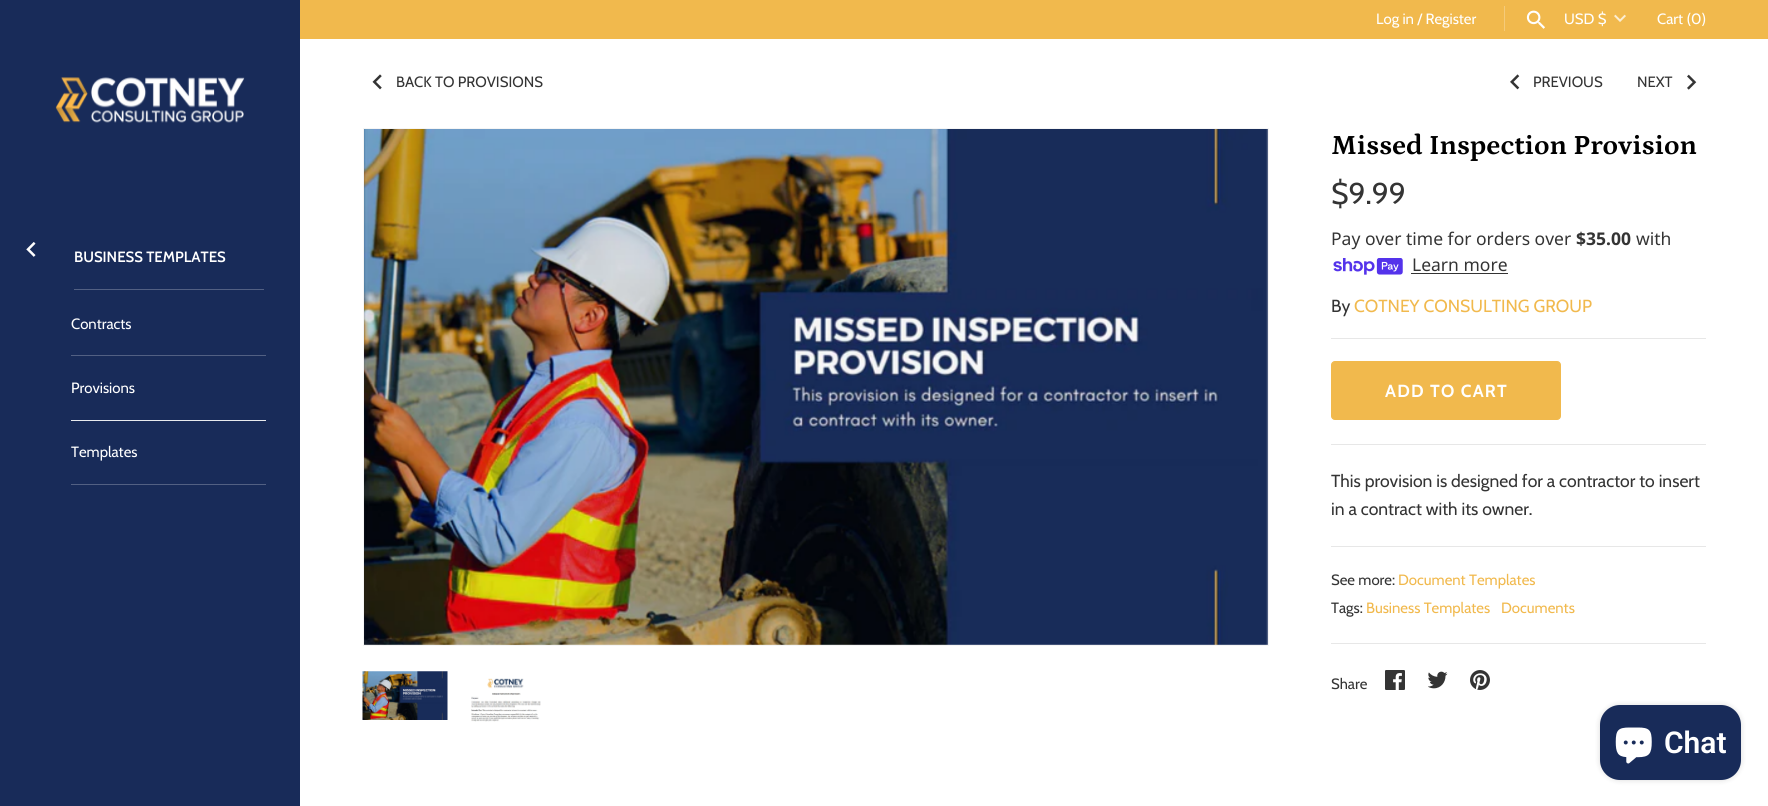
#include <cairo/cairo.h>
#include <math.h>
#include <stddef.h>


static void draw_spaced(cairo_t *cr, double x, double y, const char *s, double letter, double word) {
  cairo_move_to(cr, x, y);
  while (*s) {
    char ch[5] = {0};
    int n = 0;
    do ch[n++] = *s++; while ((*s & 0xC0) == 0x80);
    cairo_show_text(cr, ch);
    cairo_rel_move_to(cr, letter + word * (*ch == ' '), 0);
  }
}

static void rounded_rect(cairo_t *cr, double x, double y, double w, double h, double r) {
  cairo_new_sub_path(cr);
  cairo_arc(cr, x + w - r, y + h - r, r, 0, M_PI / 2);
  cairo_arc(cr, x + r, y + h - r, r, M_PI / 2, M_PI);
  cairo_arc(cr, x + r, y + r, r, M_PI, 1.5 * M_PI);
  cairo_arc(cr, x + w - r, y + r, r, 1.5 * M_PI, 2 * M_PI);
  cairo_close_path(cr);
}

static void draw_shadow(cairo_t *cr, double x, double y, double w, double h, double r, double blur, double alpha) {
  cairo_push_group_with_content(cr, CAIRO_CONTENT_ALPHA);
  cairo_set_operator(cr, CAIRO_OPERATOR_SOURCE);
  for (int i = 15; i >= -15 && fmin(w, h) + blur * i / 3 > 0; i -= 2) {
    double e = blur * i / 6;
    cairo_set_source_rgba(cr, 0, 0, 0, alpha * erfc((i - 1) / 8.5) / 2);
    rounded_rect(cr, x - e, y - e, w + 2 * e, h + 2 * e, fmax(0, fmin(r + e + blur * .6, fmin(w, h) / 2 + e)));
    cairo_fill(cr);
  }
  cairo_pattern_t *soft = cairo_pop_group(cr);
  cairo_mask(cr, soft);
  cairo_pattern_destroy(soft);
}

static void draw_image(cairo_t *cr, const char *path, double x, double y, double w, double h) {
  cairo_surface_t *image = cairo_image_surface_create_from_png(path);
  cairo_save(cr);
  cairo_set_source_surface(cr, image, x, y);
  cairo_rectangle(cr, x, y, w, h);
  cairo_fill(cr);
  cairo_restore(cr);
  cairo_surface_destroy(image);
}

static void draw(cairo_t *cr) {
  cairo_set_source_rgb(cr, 1, 1, 1);
  cairo_paint(cr);
  cairo_set_source_rgb(cr, 241 / 255.0, 185 / 255.0, 77 / 255.0);
  cairo_rectangle(cr, 300, 0, 1468, 39);
  cairo_fill(cr);
  cairo_set_source_rgb(cr, 245 / 255.0, 203 / 255.0, 122 / 255.0);
  cairo_rectangle(cr, 1504, 6, 1, 25);
  cairo_fill(cr);
  draw_image(cr, "images/1.png", 1526, 10, 19, 19);
  draw_image(cr, "images/2.png", 1614, 14, 12, 8);
  cairo_set_source_rgb(cr, 24 / 255.0, 43 / 255.0, 89 / 255.0);
  cairo_rectangle(cr, 0, 0, 300, 806);
  cairo_fill(cr);
  draw_image(cr, "images/3.png", 55, 77, 190, 46);
  draw_image(cr, "images/4.png", 26, 242, 10, 15);
  cairo_set_source_rgb(cr, 82 / 255.0, 96 / 255.0, 131 / 255.0);
  cairo_rectangle(cr, 74, 289, 190, 1);
  cairo_fill(cr);
  cairo_rectangle(cr, 71, 355, 195, 1);
  cairo_fill(cr);
  cairo_set_source_rgb(cr, 232 / 255.0, 234 / 255.0, 238 / 255.0);
  cairo_rectangle(cr, 71, 420, 195, 1);
  cairo_fill(cr);
  cairo_set_source_rgb(cr, 82 / 255.0, 96 / 255.0, 131 / 255.0);
  cairo_rectangle(cr, 71, 484, 195, 1);
  cairo_fill(cr);
  draw_image(cr, "images/5.png", 372, 74, 10, 16);
  draw_image(cr, "images/6.png", 1510, 74, 10, 16);
  draw_image(cr, "images/7.png", 1687, 74, 10, 16);
  cairo_rectangle(cr, 363.5, 128.5, 905, 517);
  cairo_set_source_rgb(cr, 245 / 255.0, 245 / 255.0, 245 / 255.0);
  cairo_set_line_width(cr, 1);
  cairo_stroke(cr);
  draw_image(cr, "images/8.png", 364, 129, 904, 516);
  draw_image(cr, "images/9.png", 362, 671, 86, 49);
  draw_image(cr, "images/10.png", 471, 678, 70, 44);
  draw_image(cr, "images/11.png", 1333, 258, 70, 17);
  cairo_set_source_rgb(cr, 52 / 255.0, 52 / 255.0, 52 / 255.0);
  cairo_rectangle(cr, 1411, 273, 97, 1);
  cairo_fill(cr);
  cairo_set_source_rgb(cr, 231 / 255.0, 231 / 255.0, 231 / 255.0);
  cairo_rectangle(cr, 1331, 338, 375, 1);
  cairo_fill(cr);
  cairo_set_source_rgb(cr, 241 / 255.0, 185 / 255.0, 77 / 255.0);
  rounded_rect(cr, 1331.5, 361.5, 229, 58, 3.5);
  cairo_fill_preserve(cr);
  cairo_stroke(cr);
  cairo_set_source_rgb(cr, 231 / 255.0, 231 / 255.0, 231 / 255.0);
  cairo_rectangle(cr, 1331, 444, 375, 1);
  cairo_fill(cr);
  cairo_rectangle(cr, 1331, 546, 375, 1);
  cairo_fill(cr);
  cairo_rectangle(cr, 1331, 643, 375, 1);
  cairo_fill(cr);
  draw_image(cr, "images/12.png", 1385, 670, 20, 20);
  draw_image(cr, "images/13.png", 1428, 671, 20, 18);
  draw_image(cr, "images/14.png", 1470, 670, 20, 20);
  cairo_set_source_rgb(cr, 0, 0, 0);
  draw_shadow(cr, 1600, 705, 141, 75, 20, 3, 0.15);
  cairo_set_source_rgb(cr, 24 / 255.0, 43 / 255.0, 89 / 255.0);
  rounded_rect(cr, 1600, 705, 141, 75, 20);
  cairo_fill(cr);
  draw_image(cr, "images/15.png", 1615, 727, 37, 37);
  cairo_select_font_face(cr, "Cabin", CAIRO_FONT_SLANT_NORMAL, CAIRO_FONT_WEIGHT_NORMAL);
  cairo_set_font_size(cr, 14.9);
  cairo_set_source_rgb(cr, 1, 1, 1);
  cairo_move_to(cr, 1376, 24);
  cairo_show_text(cr, "Log in / Register");
  cairo_move_to(cr, 1564, 24);
  cairo_show_text(cr, "USD $");
  cairo_move_to(cr, 1657, 24);
  cairo_show_text(cr, "Cart (0)");
  cairo_select_font_face(cr, "Cabin SemiBold", CAIRO_FONT_SLANT_NORMAL, CAIRO_FONT_WEIGHT_NORMAL);
  cairo_move_to(cr, 74, 262);
  cairo_show_text(cr, "BUSINESS TEMPLATES");
  cairo_select_font_face(cr, "Cabin", CAIRO_FONT_SLANT_NORMAL, CAIRO_FONT_WEIGHT_NORMAL);
  cairo_move_to(cr, 71, 329);
  cairo_show_text(cr, "Contracts");
  cairo_move_to(cr, 71, 393);
  cairo_show_text(cr, "Provisions");
  cairo_move_to(cr, 71, 457);
  cairo_show_text(cr, "Templates");
  cairo_set_source_rgb(cr, 52 / 255.0, 52 / 255.0, 52 / 255.0);
  cairo_move_to(cr, 396, 87);
  cairo_show_text(cr, "BACK TO PROVISIONS");
  cairo_move_to(cr, 1533, 87);
  cairo_show_text(cr, "PREVIOUS");
  cairo_move_to(cr, 1637, 87);
  cairo_show_text(cr, "NEXT");
  cairo_select_font_face(cr, "Petrona", CAIRO_FONT_SLANT_NORMAL, CAIRO_FONT_WEIGHT_BOLD);
  cairo_set_font_size(cr, 28);
  cairo_set_source_rgb(cr, 0, 0, 0);
  cairo_move_to(cr, 1331, 154);
  cairo_show_text(cr, "Missed Inspection Provision");
  cairo_select_font_face(cr, "Cabin", CAIRO_FONT_SLANT_NORMAL, CAIRO_FONT_WEIGHT_NORMAL);
  cairo_set_font_size(cr, 30);
  cairo_set_source_rgb(cr, 52 / 255.0, 52 / 255.0, 52 / 255.0);
  cairo_move_to(cr, 1331, 204);
  cairo_show_text(cr, "$9.99");
  cairo_select_font_face(cr, "Noto Sans", CAIRO_FONT_SLANT_NORMAL, CAIRO_FONT_WEIGHT_NORMAL);
  cairo_set_font_size(cr, 17.5);
  cairo_move_to(cr, 1331, 245);
  cairo_show_text(cr, "Pay over time for orders over");
  cairo_select_font_face(cr, "Noto Sans", CAIRO_FONT_SLANT_NORMAL, CAIRO_FONT_WEIGHT_BOLD);
  cairo_move_to(cr, 1576, 245);
  cairo_show_text(cr, "$35.00");
  cairo_select_font_face(cr, "Noto Sans", CAIRO_FONT_SLANT_NORMAL, CAIRO_FONT_WEIGHT_NORMAL);
  cairo_move_to(cr, 1636, 245);
  cairo_show_text(cr, "with");
  cairo_move_to(cr, 1412, 271);
  cairo_show_text(cr, "Learn more");
  cairo_select_font_face(cr, "Cabin", CAIRO_FONT_SLANT_NORMAL, CAIRO_FONT_WEIGHT_NORMAL);
  cairo_move_to(cr, 1331, 312);
  cairo_show_text(cr, "By");
  cairo_set_source_rgb(cr, 241 / 255.0, 185 / 255.0, 77 / 255.0);
  cairo_move_to(cr, 1354, 312);
  cairo_show_text(cr, "COTNEY CONSULTING GROUP");
  cairo_select_font_face(cr, "Cabin", CAIRO_FONT_SLANT_NORMAL, CAIRO_FONT_WEIGHT_BOLD);
  cairo_set_source_rgb(cr, 1, 1, 1);
  draw_spaced(cr, 1385, 397, "ADD TO CART", 1.25, 0);
  cairo_select_font_face(cr, "Cabin", CAIRO_FONT_SLANT_NORMAL, CAIRO_FONT_WEIGHT_NORMAL);
  cairo_set_source_rgb(cr, 52 / 255.0, 52 / 255.0, 52 / 255.0);
  cairo_move_to(cr, 1331, 487);
  cairo_show_text(cr, "This provision is designed for a contractor to insert");
  cairo_move_to(cr, 1331, 515);
  cairo_show_text(cr, "in a contract with its owner.");
  cairo_set_font_size(cr, 14.9);
  cairo_move_to(cr, 1331, 585);
  cairo_show_text(cr, "See more:");
  cairo_set_source_rgb(cr, 241 / 255.0, 185 / 255.0, 77 / 255.0);
  cairo_move_to(cr, 1398, 585);
  cairo_show_text(cr, "Document Templates");
  cairo_set_source_rgb(cr, 52 / 255.0, 52 / 255.0, 52 / 255.0);
  cairo_move_to(cr, 1331, 613);
  cairo_show_text(cr, "Tags:");
  cairo_set_source_rgb(cr, 241 / 255.0, 185 / 255.0, 77 / 255.0);
  cairo_move_to(cr, 1366, 613);
  cairo_show_text(cr, "Business Templates");
  cairo_move_to(cr, 1501, 613);
  cairo_show_text(cr, "Documents");
  cairo_set_source_rgb(cr, 52 / 255.0, 52 / 255.0, 52 / 255.0);
  cairo_move_to(cr, 1331, 689);
  cairo_show_text(cr, "Share");
  cairo_select_font_face(cr, "Roboto SemiBold", CAIRO_FONT_SLANT_NORMAL, CAIRO_FONT_WEIGHT_NORMAL);
  cairo_set_font_size(cr, 30);
  cairo_set_source_rgb(cr, 1, 1, 1);
  cairo_move_to(cr, 1664, 753);
  cairo_show_text(cr, "Chat");
}

int main(void) {
  cairo_surface_t *surface = cairo_image_surface_create(CAIRO_FORMAT_RGB24, 1768, 806);
  cairo_t *cr = cairo_create(surface);
  cairo_font_options_t *options = cairo_font_options_create();
  cairo_font_options_set_hint_metrics(options, CAIRO_HINT_METRICS_OFF);
  cairo_font_options_set_hint_style(options, CAIRO_HINT_STYLE_NONE);
  cairo_set_font_options(cr, options);
  cairo_set_miter_limit(cr, 4);
  draw(cr);
  cairo_surface_write_to_png(surface, "out.png");
  cairo_font_options_destroy(options);
  cairo_destroy(cr);
  cairo_surface_destroy(surface);
  return 0;
}
